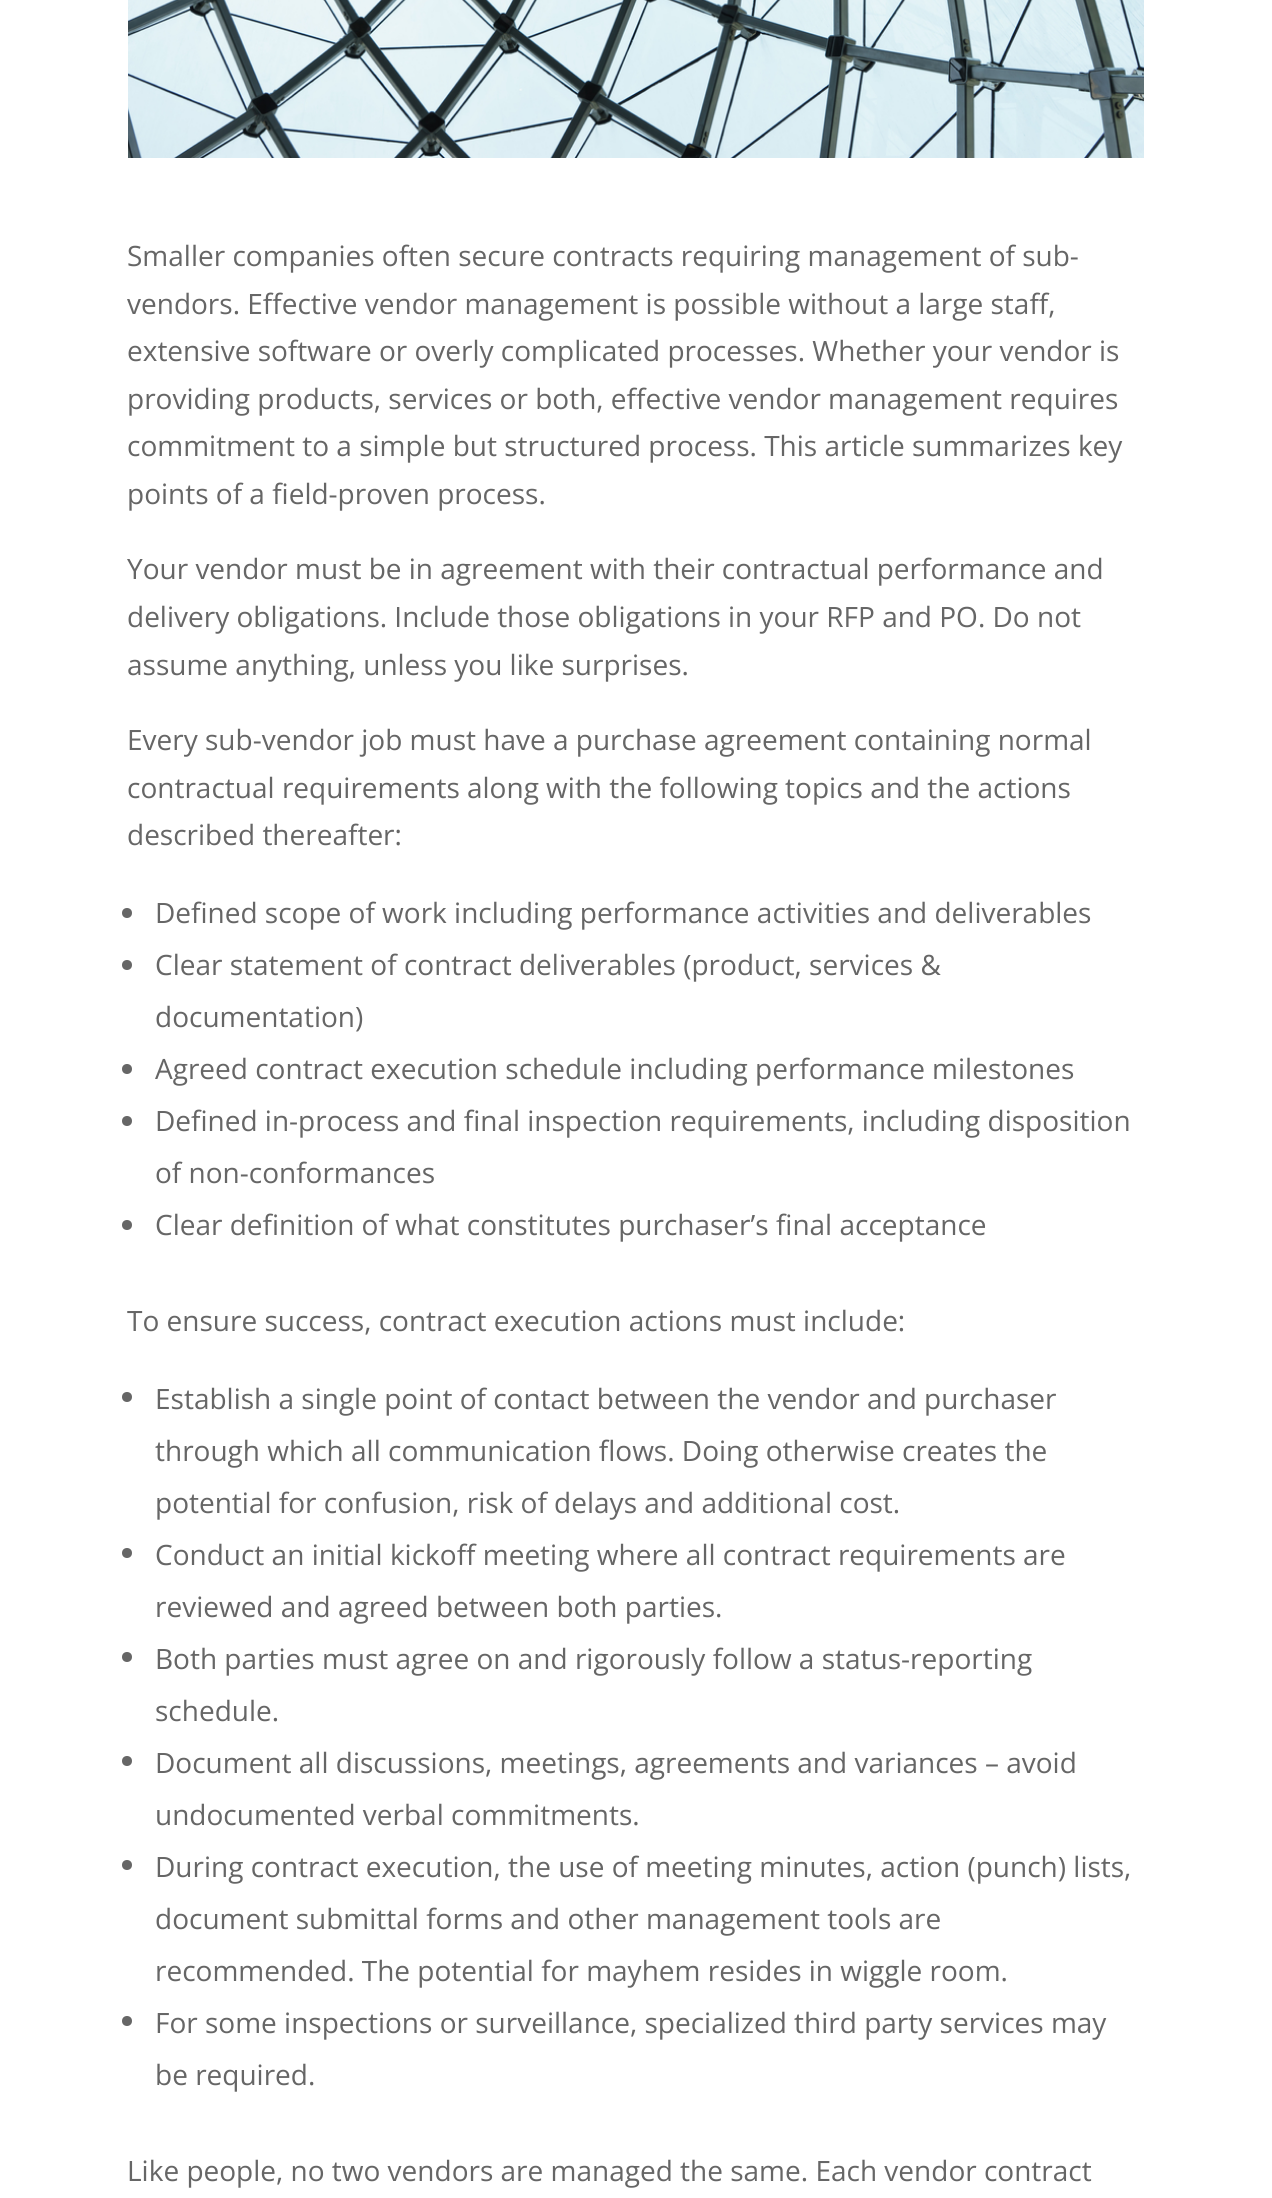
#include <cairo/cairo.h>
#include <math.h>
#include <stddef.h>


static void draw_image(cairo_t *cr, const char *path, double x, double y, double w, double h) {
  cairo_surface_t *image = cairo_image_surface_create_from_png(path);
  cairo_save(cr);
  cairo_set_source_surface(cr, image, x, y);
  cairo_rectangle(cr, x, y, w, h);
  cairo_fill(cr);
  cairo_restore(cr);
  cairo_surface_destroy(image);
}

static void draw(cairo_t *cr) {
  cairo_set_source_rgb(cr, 1, 1, 1);
  cairo_paint(cr);
  draw_image(cr, "images/1.png", 128, 0, 1016, 158);
  cairo_set_source_rgb(cr, 102 / 255.0, 102 / 255.0, 102 / 255.0);
  cairo_arc(cr, 127, 913, 5, 0, 2 * M_PI);
  cairo_fill(cr);
  cairo_arc(cr, 127, 965, 5, 0, 2 * M_PI);
  cairo_fill(cr);
  cairo_arc(cr, 127, 1069, 5, 0, 2 * M_PI);
  cairo_fill(cr);
  cairo_arc(cr, 127, 1121, 5, 0, 2 * M_PI);
  cairo_fill(cr);
  cairo_arc(cr, 127, 1225, 5, 0, 2 * M_PI);
  cairo_fill(cr);
  cairo_arc(cr, 127, 1397, 5, 0, 2 * M_PI);
  cairo_fill(cr);
  cairo_arc(cr, 127, 1553, 5, 0, 2 * M_PI);
  cairo_fill(cr);
  cairo_arc(cr, 127, 1657, 5, 0, 2 * M_PI);
  cairo_fill(cr);
  cairo_arc(cr, 127, 1761, 5, 0, 2 * M_PI);
  cairo_fill(cr);
  cairo_arc(cr, 127, 1865, 5, 0, 2 * M_PI);
  cairo_fill(cr);
  cairo_arc(cr, 127, 2021, 5, 0, 2 * M_PI);
  cairo_fill(cr);
  cairo_select_font_face(cr, "Open Sans", CAIRO_FONT_SLANT_NORMAL, CAIRO_FONT_WEIGHT_NORMAL);
  cairo_set_font_size(cr, 28);
  cairo_move_to(cr, 127, 266);
  cairo_show_text(cr, "Smaller companies often secure contracts requiring management of sub-");
  cairo_move_to(cr, 127, 314);
  cairo_show_text(cr, "vendors. Effective vendor management is possible without a large staff,");
  cairo_move_to(cr, 127, 361);
  cairo_show_text(cr, "extensive software or overly complicated processes. Whether your vendor is");
  cairo_move_to(cr, 127, 409);
  cairo_show_text(cr, "providing products, services or both, effective vendor management requires");
  cairo_move_to(cr, 127, 456);
  cairo_show_text(cr, "commitment to a simple but structured process. This article summarizes key");
  cairo_move_to(cr, 127, 504);
  cairo_show_text(cr, "points of a field-proven process.");
  cairo_move_to(cr, 127, 579);
  cairo_show_text(cr, "Your vendor must be in agreement with their contractual performance and");
  cairo_move_to(cr, 127, 627);
  cairo_show_text(cr, "delivery obligations. Include those obligations in your RFP and PO. Do not");
  cairo_move_to(cr, 127, 675);
  cairo_show_text(cr, "assume anything, unless you like surprises.");
  cairo_move_to(cr, 127, 750);
  cairo_show_text(cr, "Every sub-vendor job must have a purchase agreement containing normal");
  cairo_move_to(cr, 127, 798);
  cairo_show_text(cr, "contractual requirements along with the following topics and the actions");
  cairo_move_to(cr, 127, 845);
  cairo_show_text(cr, "described thereafter:");
  cairo_move_to(cr, 155, 923);
  cairo_show_text(cr, "Defined scope of work including performance activities and deliverables");
  cairo_move_to(cr, 155, 975);
  cairo_show_text(cr, "Clear statement of contract deliverables (product, services &");
  cairo_move_to(cr, 155, 1027);
  cairo_show_text(cr, "documentation)");
  cairo_move_to(cr, 155, 1079);
  cairo_show_text(cr, "Agreed contract execution schedule including performance milestones");
  cairo_move_to(cr, 155, 1131);
  cairo_show_text(cr, "Defined in-process and final inspection requirements, including disposition");
  cairo_move_to(cr, 155, 1183);
  cairo_show_text(cr, "of non-conformances");
  cairo_move_to(cr, 155, 1235);
  cairo_show_text(cr, "Clear definition of what constitutes purchaser’s final acceptance");
  cairo_move_to(cr, 127, 1331);
  cairo_show_text(cr, "To ensure success, contract execution actions must include:");
  cairo_move_to(cr, 155, 1409);
  cairo_show_text(cr, "Establish a single point of contact between the vendor and purchaser");
  cairo_move_to(cr, 155, 1461);
  cairo_show_text(cr, "through which all communication flows. Doing otherwise creates the");
  cairo_move_to(cr, 155, 1513);
  cairo_show_text(cr, "potential for confusion, risk of delays and additional cost.");
  cairo_move_to(cr, 155, 1565);
  cairo_show_text(cr, "Conduct an initial kickoff meeting where all contract requirements are");
  cairo_move_to(cr, 155, 1617);
  cairo_show_text(cr, "reviewed and agreed between both parties.");
  cairo_move_to(cr, 155, 1669);
  cairo_show_text(cr, "Both parties must agree on and rigorously follow a status-reporting");
  cairo_move_to(cr, 155, 1721);
  cairo_show_text(cr, "schedule.");
  cairo_move_to(cr, 155, 1773);
  cairo_show_text(cr, "Document all discussions, meetings, agreements and variances – avoid");
  cairo_move_to(cr, 155, 1825);
  cairo_show_text(cr, "undocumented verbal commitments.");
  cairo_move_to(cr, 155, 1877);
  cairo_show_text(cr, "During contract execution, the use of meeting minutes, action (punch) lists,");
  cairo_move_to(cr, 155, 1929);
  cairo_show_text(cr, "document submittal forms and other management tools are");
  cairo_move_to(cr, 155, 1981);
  cairo_show_text(cr, "recommended. The potential for mayhem resides in wiggle room.");
  cairo_move_to(cr, 155, 2033);
  cairo_show_text(cr, "For some inspections or surveillance, specialized third party services may");
  cairo_move_to(cr, 155, 2085);
  cairo_show_text(cr, "be required.");
  cairo_move_to(cr, 127, 2181);
  cairo_show_text(cr, "Like people, no two vendors are managed the same. Each vendor contract");
}

int main(void) {
  cairo_surface_t *surface = cairo_image_surface_create(CAIRO_FORMAT_RGB24, 1272, 2198);
  cairo_t *cr = cairo_create(surface);
  cairo_font_options_t *options = cairo_font_options_create();
  cairo_font_options_set_hint_metrics(options, CAIRO_HINT_METRICS_OFF);
  cairo_font_options_set_hint_style(options, CAIRO_HINT_STYLE_NONE);
  cairo_set_font_options(cr, options);
  cairo_set_miter_limit(cr, 4);
  draw(cr);
  cairo_surface_write_to_png(surface, "out.png");
  cairo_font_options_destroy(options);
  cairo_destroy(cr);
  cairo_surface_destroy(surface);
  return 0;
}
